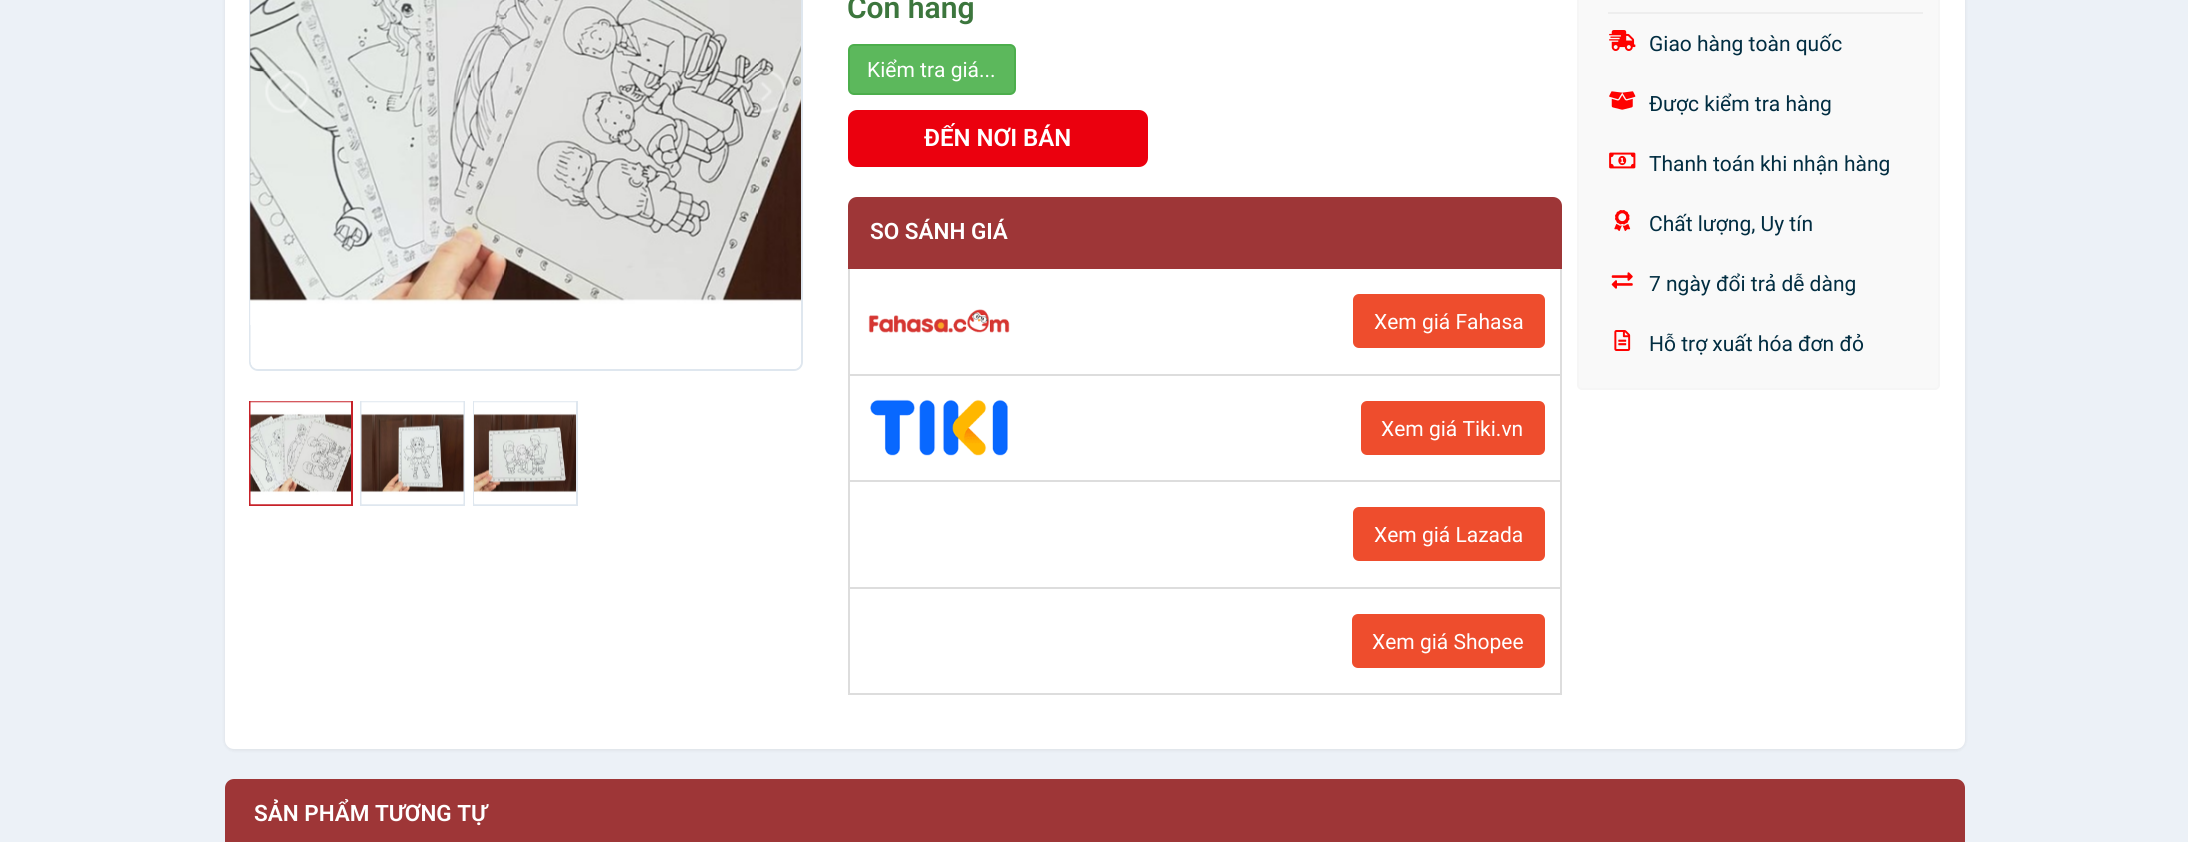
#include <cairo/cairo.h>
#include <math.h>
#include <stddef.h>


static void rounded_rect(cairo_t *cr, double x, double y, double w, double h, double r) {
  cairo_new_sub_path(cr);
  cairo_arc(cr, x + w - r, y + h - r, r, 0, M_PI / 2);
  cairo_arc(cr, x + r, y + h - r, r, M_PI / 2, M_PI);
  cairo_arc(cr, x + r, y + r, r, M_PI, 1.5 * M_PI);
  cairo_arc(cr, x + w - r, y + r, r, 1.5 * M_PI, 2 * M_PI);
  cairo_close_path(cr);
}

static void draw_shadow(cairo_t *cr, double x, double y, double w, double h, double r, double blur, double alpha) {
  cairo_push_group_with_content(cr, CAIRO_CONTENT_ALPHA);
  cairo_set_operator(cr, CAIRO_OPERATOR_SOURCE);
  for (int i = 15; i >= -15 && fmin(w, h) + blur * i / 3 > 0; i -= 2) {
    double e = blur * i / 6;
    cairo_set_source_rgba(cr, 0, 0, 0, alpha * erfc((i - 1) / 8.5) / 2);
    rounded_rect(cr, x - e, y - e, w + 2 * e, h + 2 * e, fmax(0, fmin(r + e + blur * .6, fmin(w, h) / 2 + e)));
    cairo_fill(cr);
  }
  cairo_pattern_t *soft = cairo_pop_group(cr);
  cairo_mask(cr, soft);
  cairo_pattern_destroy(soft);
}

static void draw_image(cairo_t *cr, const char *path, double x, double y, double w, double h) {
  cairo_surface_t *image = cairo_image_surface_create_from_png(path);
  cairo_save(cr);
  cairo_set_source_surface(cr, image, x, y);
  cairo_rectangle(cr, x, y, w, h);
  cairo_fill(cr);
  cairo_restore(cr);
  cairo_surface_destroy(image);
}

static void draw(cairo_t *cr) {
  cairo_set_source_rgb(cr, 236 / 255.0, 241 / 255.0, 247 / 255.0);
  cairo_paint(cr);
  cairo_set_source_rgb(cr, 0, 0, 0);
  draw_shadow(cr, 225, -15, 1740, 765, 9, 2, 0.08);
  cairo_set_source_rgb(cr, 1, 1, 1);
  rounded_rect(cr, 225, -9, 1740, 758, 9);
  cairo_fill(cr);
  rounded_rect(cr, 250, -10, 552, 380, 8);
  cairo_set_source_rgb(cr, 223 / 255.0, 231 / 255.0, 239 / 255.0);
  cairo_stroke(cr);
  draw_image(cr, "images/1.png", 250, 0, 1, 362);
  draw_image(cr, "images/2.png", 250, 0, 551, 369);
  draw_image(cr, "images/3.png", 265, 70, 45, 43);
  draw_image(cr, "images/4.png", 742, 69, 44, 45);
  cairo_rectangle(cr, 250, 402, 102, 103);
  cairo_set_source_rgb(cr, 199 / 255.0, 33 / 255.0, 41 / 255.0);
  cairo_stroke(cr);
  draw_image(cr, "images/5.png", 250, 401, 101, 104);
  cairo_rectangle(cr, 361, 402, 103, 103);
  cairo_set_source_rgb(cr, 223 / 255.0, 231 / 255.0, 239 / 255.0);
  cairo_stroke(cr);
  draw_image(cr, "images/6.png", 361, 401, 103, 104);
  cairo_rectangle(cr, 474, 402, 103, 103);
  cairo_stroke(cr);
  draw_image(cr, "images/7.png", 474, 401, 102, 104);
  cairo_set_source_rgb(cr, 92 / 255.0, 184 / 255.0, 92 / 255.0);
  rounded_rect(cr, 849, 45, 166, 49, 5);
  cairo_fill_preserve(cr);
  cairo_set_source_rgb(cr, 76 / 255.0, 174 / 255.0, 76 / 255.0);
  cairo_stroke(cr);
  cairo_set_source_rgb(cr, 235 / 255.0, 0, 14 / 255.0);
  rounded_rect(cr, 849.5, 111.5, 297, 54, 7.5);
  cairo_fill_preserve(cr);
  cairo_set_line_width(cr, 3);
  cairo_stroke(cr);
  cairo_set_source_rgb(cr, 158 / 255.0, 54 / 255.0, 55 / 255.0);
  cairo_new_path(cr);
  cairo_move_to(cr, 857, 197);
  cairo_line_to(cr, 1553, 197);
  cairo_curve_to(cr, 1558, 197, 1562, 201, 1562, 206);
  cairo_line_to(cr, 1562, 269);
  cairo_line_to(cr, 848, 269);
  cairo_line_to(cr, 848, 206);
  cairo_curve_to(cr, 848, 201, 852, 197, 857, 197);
  cairo_close_path(cr);
  cairo_fill(cr);
  cairo_set_source_rgb(cr, 221 / 255.0, 221 / 255.0, 221 / 255.0);
  cairo_rectangle(cr, 1560, 269, 2, 106);
  cairo_fill(cr);
  cairo_rectangle(cr, 848, 374, 714, 2);
  cairo_fill(cr);
  cairo_rectangle(cr, 848, 269, 2, 106);
  cairo_fill(cr);
  draw_image(cr, "images/8.png", 868, 309, 142, 24);
  cairo_set_source_rgb(cr, 238 / 255.0, 77 / 255.0, 45 / 255.0);
  rounded_rect(cr, 1354.5, 295.5, 189, 51, 4.5);
  cairo_fill_preserve(cr);
  cairo_stroke(cr);
  cairo_set_source_rgb(cr, 221 / 255.0, 221 / 255.0, 221 / 255.0);
  cairo_rectangle(cr, 1560, 375, 2, 213);
  cairo_fill(cr);
  cairo_rectangle(cr, 848, 480, 714, 2);
  cairo_fill(cr);
  cairo_rectangle(cr, 848, 375, 2, 107);
  cairo_fill(cr);
  draw_image(cr, "images/9.png", 870, 399, 138, 57);
  cairo_set_source_rgb(cr, 238 / 255.0, 77 / 255.0, 45 / 255.0);
  rounded_rect(cr, 1362.5, 402.5, 181, 51, 4.5);
  cairo_fill_preserve(cr);
  cairo_stroke(cr);
  cairo_set_source_rgb(cr, 221 / 255.0, 221 / 255.0, 221 / 255.0);
  cairo_rectangle(cr, 848, 587, 714, 2);
  cairo_fill(cr);
  cairo_rectangle(cr, 848, 482, 2, 106);
  cairo_fill(cr);
  cairo_set_source_rgb(cr, 238 / 255.0, 77 / 255.0, 45 / 255.0);
  rounded_rect(cr, 1354.5, 508.5, 189, 51, 4.5);
  cairo_fill_preserve(cr);
  cairo_stroke(cr);
  cairo_set_source_rgb(cr, 221 / 255.0, 221 / 255.0, 221 / 255.0);
  cairo_rectangle(cr, 1560, 588, 2, 107);
  cairo_fill(cr);
  cairo_rectangle(cr, 848, 693, 714, 2);
  cairo_fill(cr);
  cairo_rectangle(cr, 848, 588, 2, 107);
  cairo_fill(cr);
  cairo_set_source_rgb(cr, 238 / 255.0, 77 / 255.0, 45 / 255.0);
  rounded_rect(cr, 1353.5, 615.5, 190, 51, 4.5);
  cairo_fill_preserve(cr);
  cairo_stroke(cr);
  cairo_set_source_rgb(cr, 249 / 255.0, 249 / 255.0, 249 / 255.0);
  rounded_rect(cr, 1578, -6, 361, 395, 4);
  cairo_fill_preserve(cr);
  cairo_set_source_rgb(cr, 246 / 255.0, 246 / 255.0, 246 / 255.0);
  cairo_set_line_width(cr, 2);
  cairo_stroke(cr);
  cairo_set_source_rgb(cr, 238 / 255.0, 238 / 255.0, 238 / 255.0);
  cairo_rectangle(cr, 1608, 12, 315, 2);
  cairo_fill(cr);
  draw_image(cr, "images/10.png", 1609, 30, 27, 21);
  draw_image(cr, "images/11.png", 1609, 91, 27, 19);
  draw_image(cr, "images/12.png", 1609, 152, 27, 17);
  draw_image(cr, "images/13.png", 1614, 210, 17, 21);
  draw_image(cr, "images/14.png", 1611, 272, 22, 17);
  draw_image(cr, "images/15.png", 1614, 330, 17, 21);
  cairo_set_source_rgb(cr, 158 / 255.0, 54 / 255.0, 55 / 255.0);
  cairo_new_path(cr);
  cairo_move_to(cr, 234, 779);
  cairo_line_to(cr, 1956, 779);
  cairo_curve_to(cr, 1961, 779, 1965, 783, 1965, 788);
  cairo_line_to(cr, 1965, 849);
  cairo_line_to(cr, 225, 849);
  cairo_line_to(cr, 225, 788);
  cairo_curve_to(cr, 225, 783, 229, 779, 234, 779);
  cairo_close_path(cr);
  cairo_fill(cr);
  cairo_select_font_face(cr, "Roboto SemiBold", CAIRO_FONT_SLANT_NORMAL, CAIRO_FONT_WEIGHT_NORMAL);
  cairo_set_font_size(cr, 30);
  cairo_set_source_rgb(cr, 60 / 255.0, 118 / 255.0, 61 / 255.0);
  cairo_move_to(cr, 847, 18);
  cairo_show_text(cr, "Còn hàng");
  cairo_select_font_face(cr, "Roboto", CAIRO_FONT_SLANT_NORMAL, CAIRO_FONT_WEIGHT_NORMAL);
  cairo_set_font_size(cr, 21);
  cairo_set_source_rgb(cr, 1, 1, 1);
  cairo_move_to(cr, 867, 77);
  cairo_show_text(cr, "Kiểm tra giá...");
  cairo_select_font_face(cr, "Roboto SemiBold", CAIRO_FONT_SLANT_NORMAL, CAIRO_FONT_WEIGHT_NORMAL);
  cairo_set_font_size(cr, 24);
  cairo_move_to(cr, 924, 146);
  cairo_show_text(cr, "ĐẾN NƠI BÁN");
  cairo_set_font_size(cr, 22.5);
  cairo_move_to(cr, 870, 239);
  cairo_show_text(cr, "SO SÁNH GIÁ");
  cairo_select_font_face(cr, "Roboto", CAIRO_FONT_SLANT_NORMAL, CAIRO_FONT_WEIGHT_NORMAL);
  cairo_set_font_size(cr, 21);
  cairo_move_to(cr, 1374, 329);
  cairo_show_text(cr, "Xem giá Fahasa");
  cairo_move_to(cr, 1381, 436);
  cairo_show_text(cr, "Xem giá Tiki.vn");
  cairo_move_to(cr, 1374, 542);
  cairo_show_text(cr, "Xem giá Lazada");
  cairo_move_to(cr, 1372, 649);
  cairo_show_text(cr, "Xem giá Shopee");
  cairo_set_source_rgb(cr, 1 / 255.0, 45 / 255.0, 65 / 255.0);
  cairo_move_to(cr, 1649, 51);
  cairo_show_text(cr, "Giao hàng toàn quốc");
  cairo_move_to(cr, 1649, 111);
  cairo_show_text(cr, "Được kiểm tra hàng");
  cairo_move_to(cr, 1649, 171);
  cairo_show_text(cr, "Thanh toán khi nhận hàng");
  cairo_move_to(cr, 1649, 231);
  cairo_show_text(cr, "Chất lượng, Uy tín");
  cairo_move_to(cr, 1649, 291);
  cairo_show_text(cr, "7 ngày đổi trả dễ dàng");
  cairo_move_to(cr, 1649, 351);
  cairo_show_text(cr, "Hỗ trợ xuất hóa đơn đỏ");
  cairo_select_font_face(cr, "Roboto SemiBold", CAIRO_FONT_SLANT_NORMAL, CAIRO_FONT_WEIGHT_NORMAL);
  cairo_set_font_size(cr, 22.5);
  cairo_set_source_rgb(cr, 1, 1, 1);
  cairo_move_to(cr, 254, 821);
  cairo_show_text(cr, "SẢN PHẨM TƯƠNG TỰ");
}

int main(void) {
  cairo_surface_t *surface = cairo_image_surface_create(CAIRO_FORMAT_RGB24, 2188, 842);
  cairo_t *cr = cairo_create(surface);
  cairo_font_options_t *options = cairo_font_options_create();
  cairo_font_options_set_hint_metrics(options, CAIRO_HINT_METRICS_OFF);
  cairo_font_options_set_hint_style(options, CAIRO_HINT_STYLE_NONE);
  cairo_set_font_options(cr, options);
  cairo_set_miter_limit(cr, 4);
  draw(cr);
  cairo_surface_write_to_png(surface, "out.png");
  cairo_font_options_destroy(options);
  cairo_destroy(cr);
  cairo_surface_destroy(surface);
  return 0;
}
